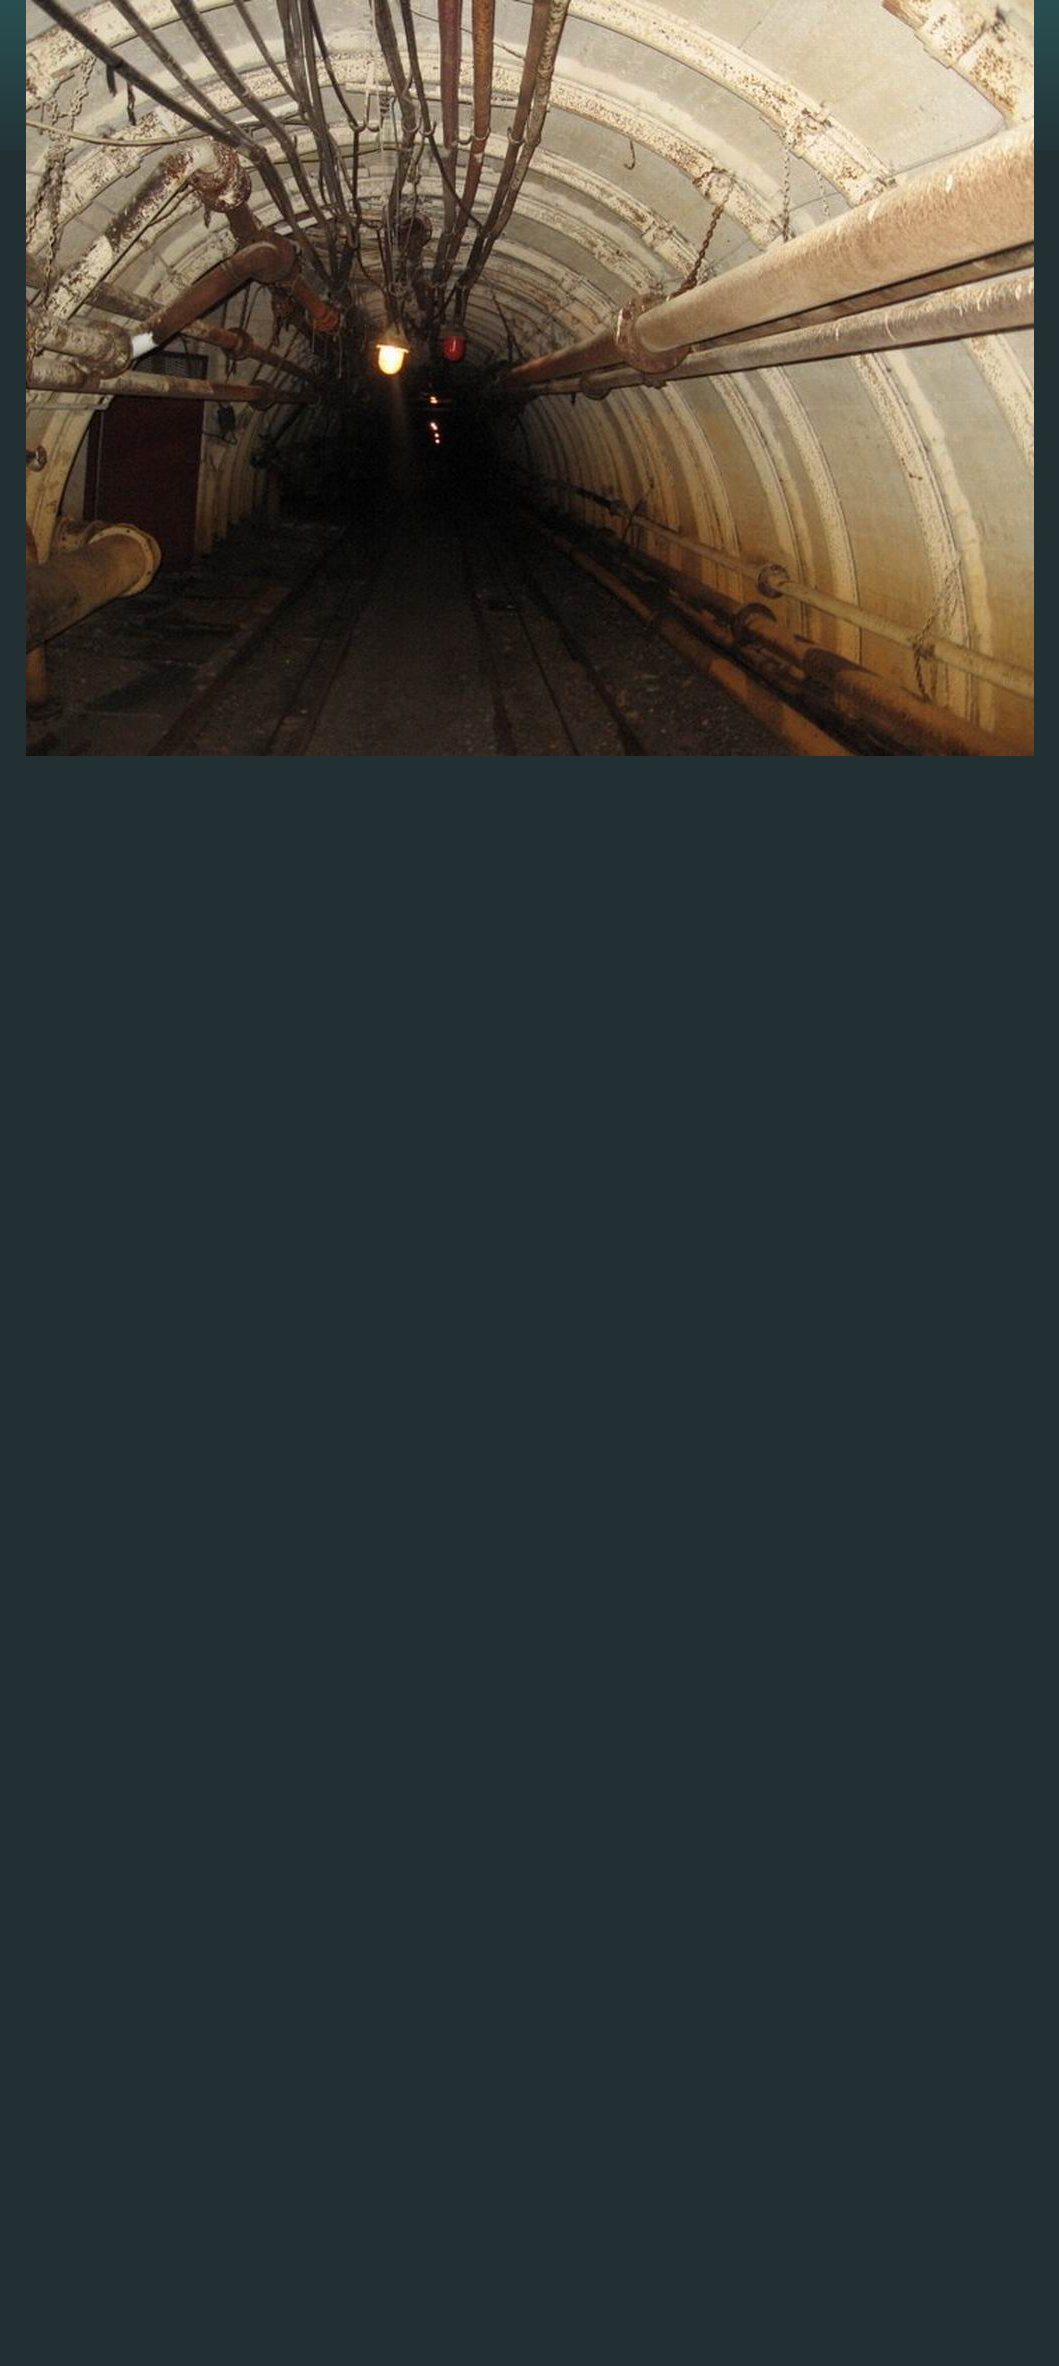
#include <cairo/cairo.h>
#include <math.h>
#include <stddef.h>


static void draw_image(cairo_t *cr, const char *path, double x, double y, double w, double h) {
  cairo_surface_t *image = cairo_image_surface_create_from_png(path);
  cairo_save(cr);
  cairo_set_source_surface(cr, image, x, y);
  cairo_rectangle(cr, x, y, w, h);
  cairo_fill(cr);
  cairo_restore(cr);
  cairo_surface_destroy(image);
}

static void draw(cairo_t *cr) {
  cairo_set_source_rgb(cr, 34 / 255.0, 48 / 255.0, 52 / 255.0);
  cairo_paint(cr);
  draw_image(cr, "images/1.png", 0, 0, 1059, 150);
  draw_image(cr, "images/2.png", 26, 0, 1008, 756);
}

int main(void) {
  cairo_surface_t *surface = cairo_image_surface_create(CAIRO_FORMAT_RGB24, 1059, 2366);
  cairo_t *cr = cairo_create(surface);
  cairo_font_options_t *options = cairo_font_options_create();
  cairo_font_options_set_hint_metrics(options, CAIRO_HINT_METRICS_OFF);
  cairo_font_options_set_hint_style(options, CAIRO_HINT_STYLE_NONE);
  cairo_set_font_options(cr, options);
  cairo_set_miter_limit(cr, 4);
  draw(cr);
  cairo_surface_write_to_png(surface, "out.png");
  cairo_font_options_destroy(options);
  cairo_destroy(cr);
  cairo_surface_destroy(surface);
  return 0;
}
